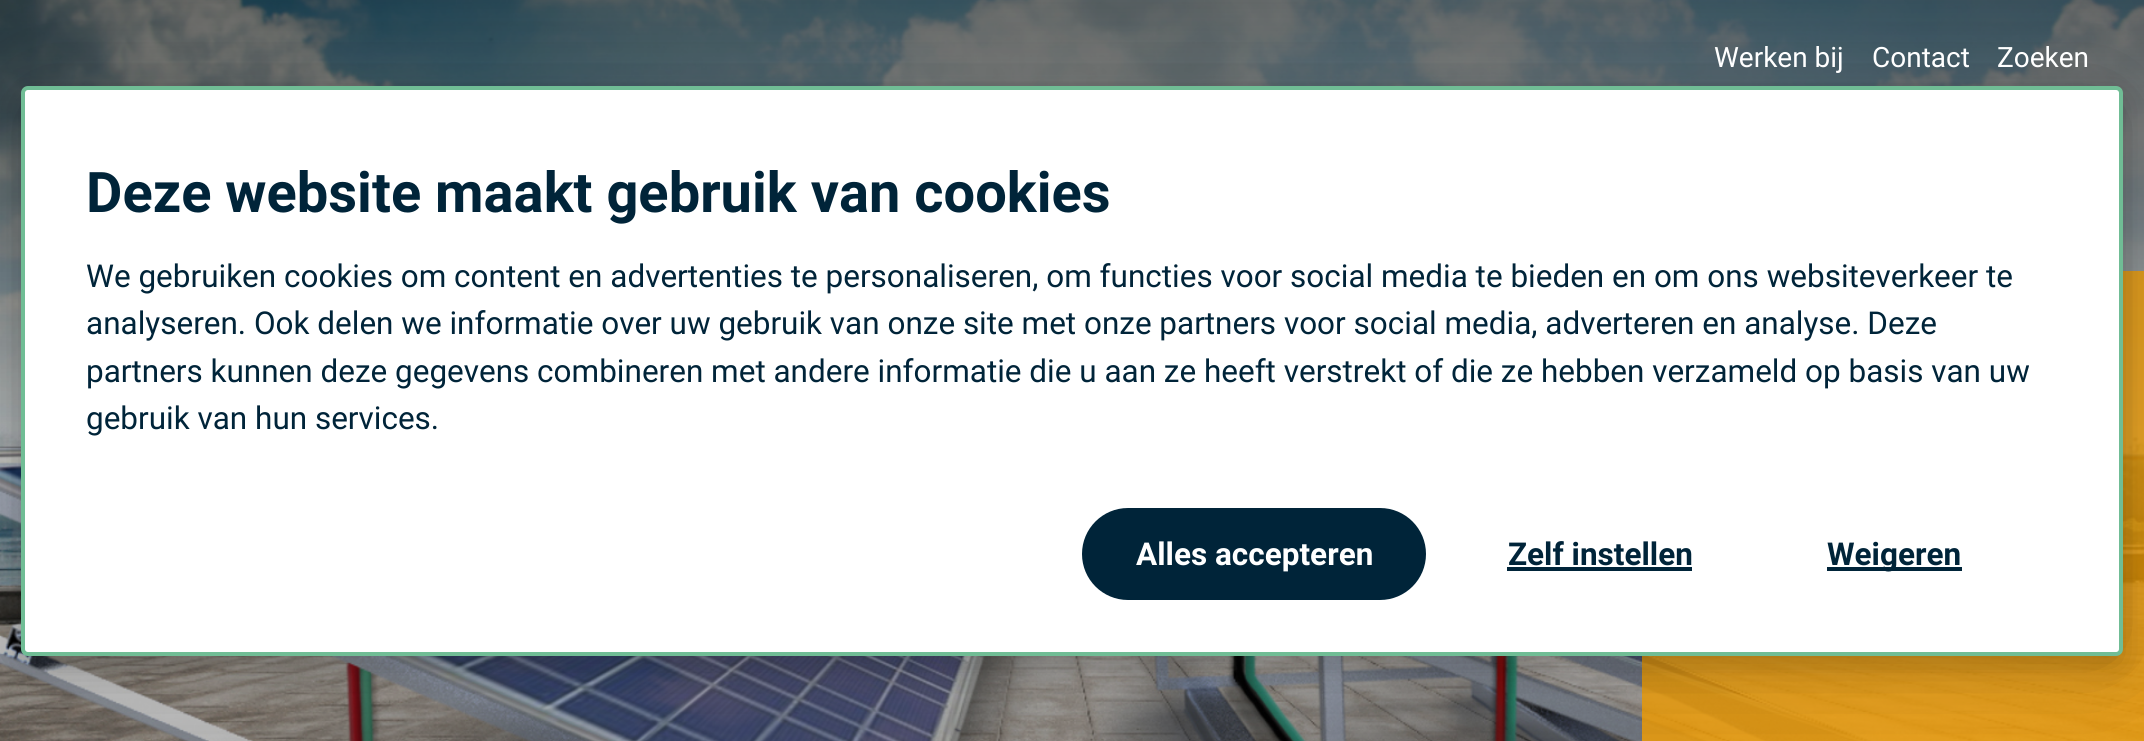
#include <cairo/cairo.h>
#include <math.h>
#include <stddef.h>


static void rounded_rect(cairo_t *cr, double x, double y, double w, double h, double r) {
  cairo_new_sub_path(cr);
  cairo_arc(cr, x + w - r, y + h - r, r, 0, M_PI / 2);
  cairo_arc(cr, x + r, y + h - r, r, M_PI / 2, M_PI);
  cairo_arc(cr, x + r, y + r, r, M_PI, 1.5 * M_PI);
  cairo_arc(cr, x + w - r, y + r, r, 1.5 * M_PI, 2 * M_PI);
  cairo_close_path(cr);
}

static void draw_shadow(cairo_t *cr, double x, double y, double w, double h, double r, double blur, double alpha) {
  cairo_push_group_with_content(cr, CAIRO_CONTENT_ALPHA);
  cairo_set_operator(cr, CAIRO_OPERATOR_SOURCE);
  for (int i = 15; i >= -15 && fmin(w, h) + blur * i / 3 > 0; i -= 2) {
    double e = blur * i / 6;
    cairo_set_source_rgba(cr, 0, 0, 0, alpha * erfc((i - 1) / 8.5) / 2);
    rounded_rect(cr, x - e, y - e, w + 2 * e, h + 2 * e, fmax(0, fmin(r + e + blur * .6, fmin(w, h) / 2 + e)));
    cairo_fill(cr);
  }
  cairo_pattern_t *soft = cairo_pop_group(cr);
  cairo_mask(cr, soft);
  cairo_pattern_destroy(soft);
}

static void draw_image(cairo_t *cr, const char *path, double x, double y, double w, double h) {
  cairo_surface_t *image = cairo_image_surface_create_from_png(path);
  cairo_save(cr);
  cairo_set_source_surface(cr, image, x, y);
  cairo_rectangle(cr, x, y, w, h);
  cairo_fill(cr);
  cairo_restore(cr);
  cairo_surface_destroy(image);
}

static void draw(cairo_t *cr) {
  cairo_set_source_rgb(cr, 1, 1, 1);
  cairo_paint(cr);
  draw_image(cr, "images/1.png", 0, 0, 2144, 741);
  cairo_set_source_rgba(cr, 249 / 255.0, 161 / 255.0, 0, 0.8);
  cairo_rectangle(cr, 1642, 271, 502, 470);
  cairo_fill(cr);
  cairo_set_source_rgb(cr, 0, 0, 0);
  draw_shadow(cr, 21, 96, 2102, 571, 7, 17.5, 0.19);
  draw_shadow(cr, 21, 93, 2102, 570, 7, 61, 0.2);
  cairo_set_source_rgb(cr, 1, 1, 1);
  rounded_rect(cr, 23, 88, 2098, 566, 5);
  cairo_fill_preserve(cr);
  cairo_set_source_rgb(cr, 112 / 255.0, 189 / 255.0, 149 / 255.0);
  cairo_set_line_width(cr, 4);
  cairo_stroke(cr);
  cairo_set_source_rgb(cr, 0, 36 / 255.0, 57 / 255.0);
  rounded_rect(cr, 1083, 509, 342, 90, 45);
  cairo_fill_preserve(cr);
  cairo_set_line_width(cr, 2);
  cairo_stroke(cr);
  cairo_rectangle(cr, 1507, 567, 185, 4);
  cairo_fill(cr);
  cairo_rectangle(cr, 1827, 567, 135, 4);
  cairo_fill(cr);
  cairo_select_font_face(cr, "Roboto", CAIRO_FONT_SLANT_NORMAL, CAIRO_FONT_WEIGHT_NORMAL);
  cairo_set_font_size(cr, 28);
  cairo_set_source_rgb(cr, 1, 1, 1);
  cairo_move_to(cr, 1714, 67);
  cairo_show_text(cr, "Werken bij");
  cairo_move_to(cr, 1872, 67);
  cairo_show_text(cr, "Contact");
  cairo_move_to(cr, 1997, 67);
  cairo_show_text(cr, "Zoeken");
  cairo_select_font_face(cr, "Roboto", CAIRO_FONT_SLANT_NORMAL, CAIRO_FONT_WEIGHT_BOLD);
  cairo_set_font_size(cr, 56);
  cairo_set_source_rgb(cr, 0, 36 / 255.0, 57 / 255.0);
  cairo_move_to(cr, 86, 212);
  cairo_show_text(cr, "Deze website maakt gebruik van cookies");
  cairo_select_font_face(cr, "Roboto", CAIRO_FONT_SLANT_NORMAL, CAIRO_FONT_WEIGHT_NORMAL);
  cairo_set_font_size(cr, 31.5);
  cairo_move_to(cr, 86, 287);
  cairo_show_text(cr, "We gebruiken cookies om content en advertenties te personaliseren, om functies voor social media te bieden en om ons websiteverkeer te");
  cairo_move_to(cr, 86, 334);
  cairo_show_text(cr, "analyseren. Ook delen we informatie over uw gebruik van onze site met onze partners voor social media, adverteren en analyse. Deze");
  cairo_move_to(cr, 86, 382);
  cairo_show_text(cr, "partners kunnen deze gegevens combineren met andere informatie die u aan ze heeft verstrekt of die ze hebben verzameld op basis van uw");
  cairo_move_to(cr, 86, 429);
  cairo_show_text(cr, "gebruik van hun services.");
  cairo_select_font_face(cr, "Roboto", CAIRO_FONT_SLANT_NORMAL, CAIRO_FONT_WEIGHT_BOLD);
  cairo_set_source_rgb(cr, 1, 1, 1);
  cairo_move_to(cr, 1136, 565);
  cairo_show_text(cr, "Alles accepteren");
  cairo_set_source_rgb(cr, 0, 36 / 255.0, 57 / 255.0);
  cairo_move_to(cr, 1508, 565);
  cairo_show_text(cr, "Zelf instellen");
  cairo_move_to(cr, 1827, 565);
  cairo_show_text(cr, "Weigeren");
}

int main(void) {
  cairo_surface_t *surface = cairo_image_surface_create(CAIRO_FORMAT_RGB24, 2144, 741);
  cairo_t *cr = cairo_create(surface);
  cairo_font_options_t *options = cairo_font_options_create();
  cairo_font_options_set_hint_metrics(options, CAIRO_HINT_METRICS_OFF);
  cairo_font_options_set_hint_style(options, CAIRO_HINT_STYLE_NONE);
  cairo_set_font_options(cr, options);
  cairo_set_miter_limit(cr, 4);
  draw(cr);
  cairo_surface_write_to_png(surface, "out.png");
  cairo_font_options_destroy(options);
  cairo_destroy(cr);
  cairo_surface_destroy(surface);
  return 0;
}
